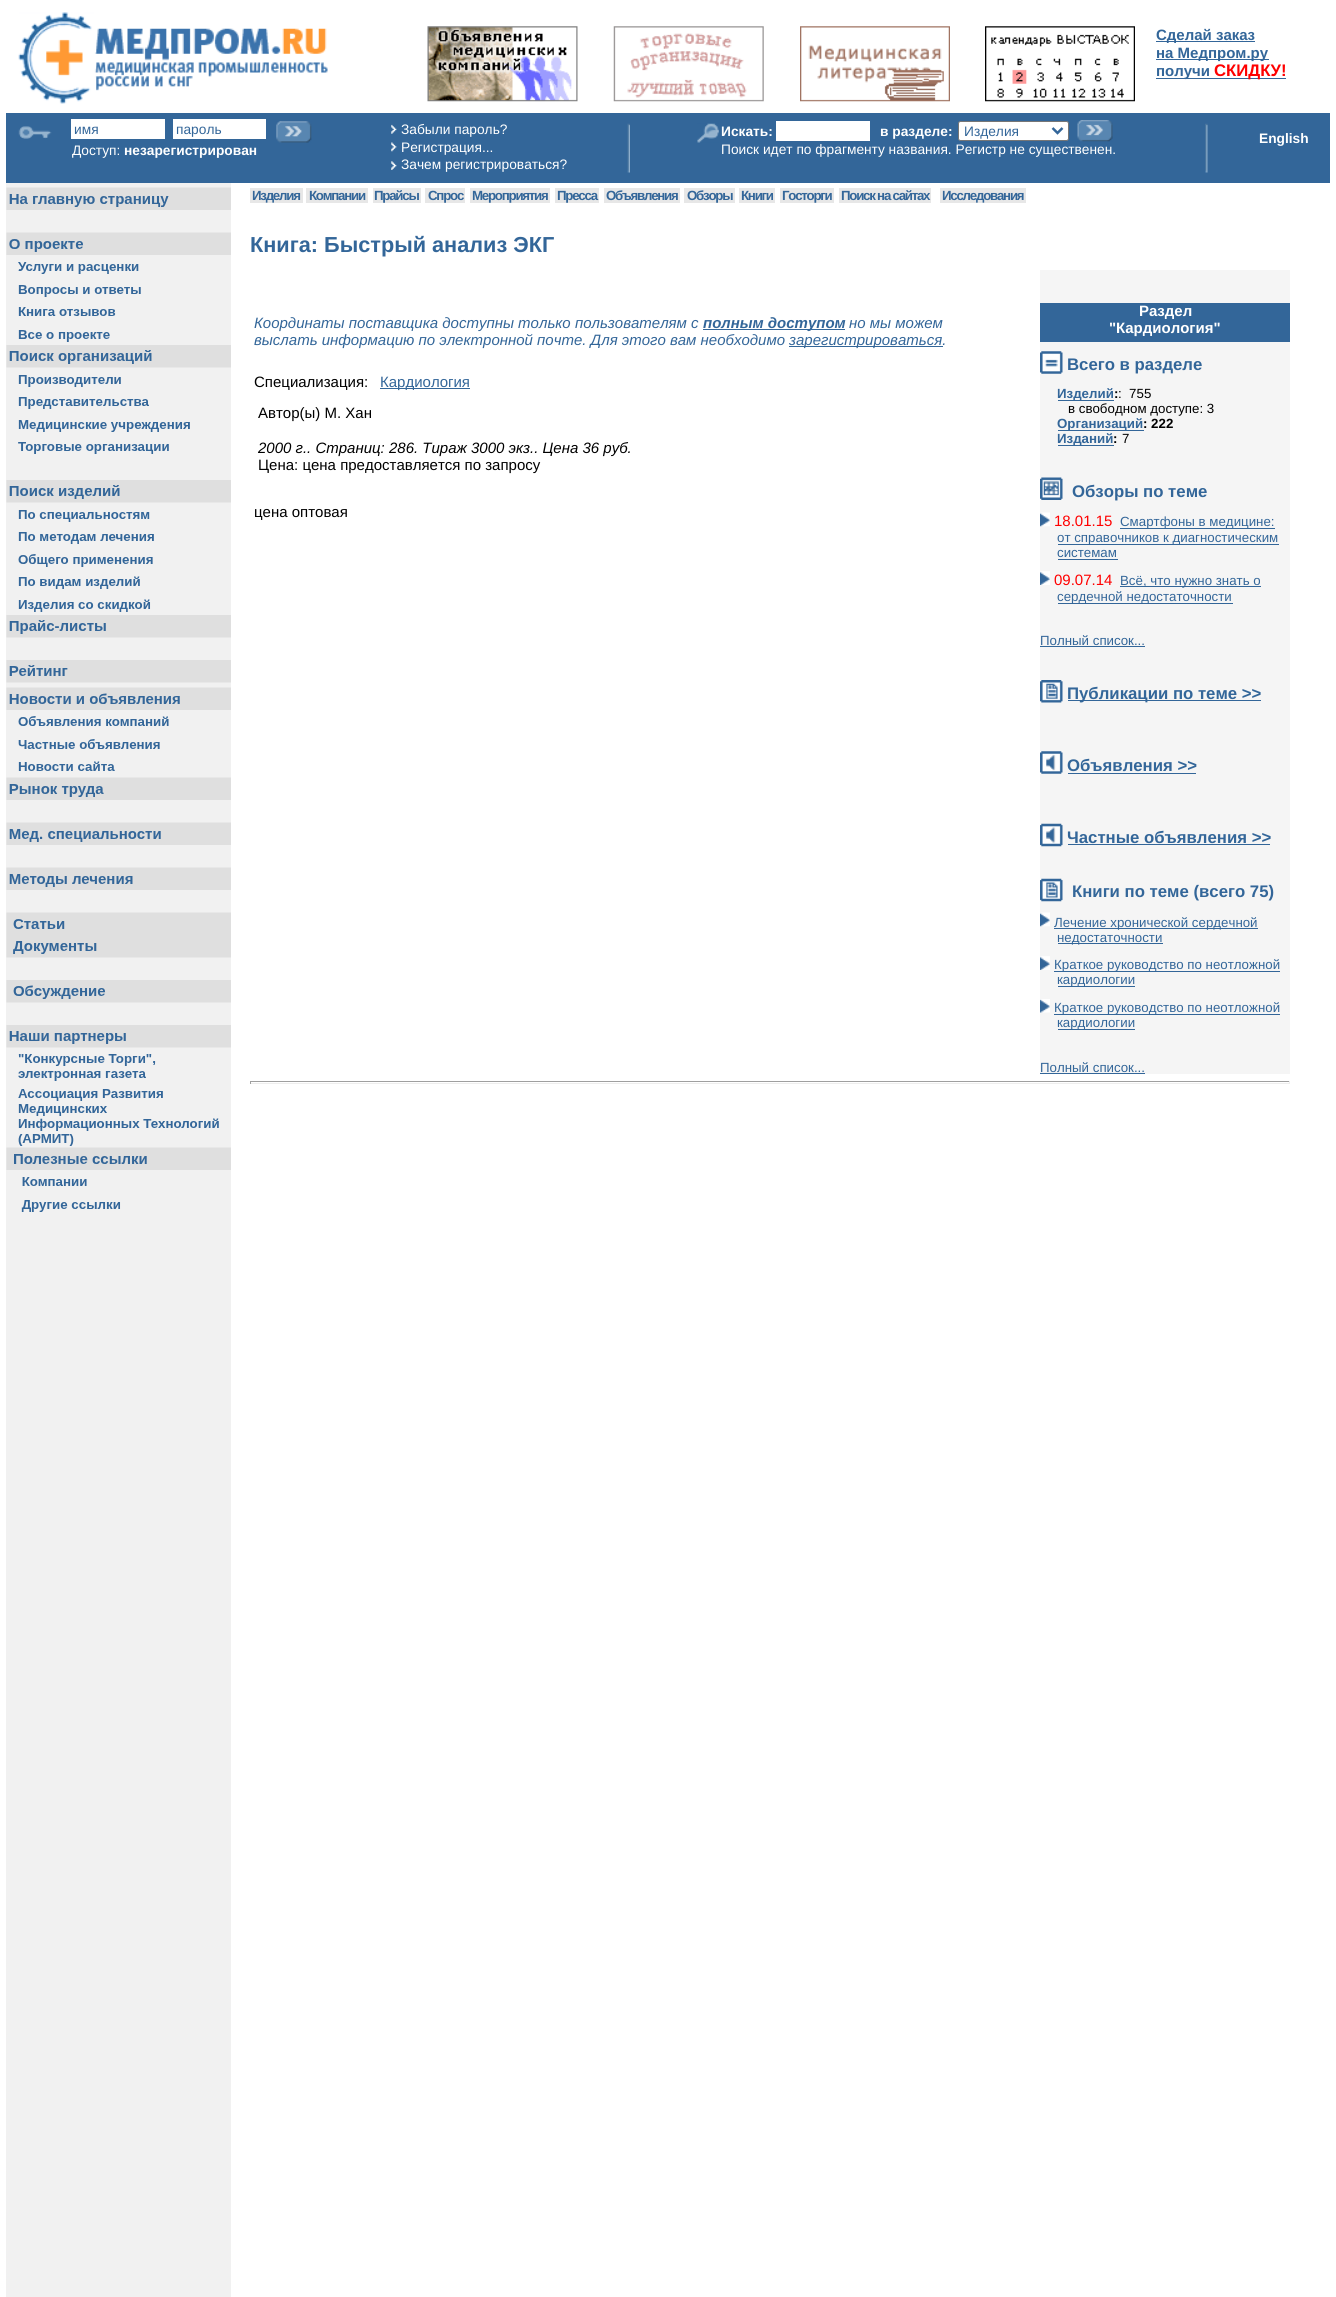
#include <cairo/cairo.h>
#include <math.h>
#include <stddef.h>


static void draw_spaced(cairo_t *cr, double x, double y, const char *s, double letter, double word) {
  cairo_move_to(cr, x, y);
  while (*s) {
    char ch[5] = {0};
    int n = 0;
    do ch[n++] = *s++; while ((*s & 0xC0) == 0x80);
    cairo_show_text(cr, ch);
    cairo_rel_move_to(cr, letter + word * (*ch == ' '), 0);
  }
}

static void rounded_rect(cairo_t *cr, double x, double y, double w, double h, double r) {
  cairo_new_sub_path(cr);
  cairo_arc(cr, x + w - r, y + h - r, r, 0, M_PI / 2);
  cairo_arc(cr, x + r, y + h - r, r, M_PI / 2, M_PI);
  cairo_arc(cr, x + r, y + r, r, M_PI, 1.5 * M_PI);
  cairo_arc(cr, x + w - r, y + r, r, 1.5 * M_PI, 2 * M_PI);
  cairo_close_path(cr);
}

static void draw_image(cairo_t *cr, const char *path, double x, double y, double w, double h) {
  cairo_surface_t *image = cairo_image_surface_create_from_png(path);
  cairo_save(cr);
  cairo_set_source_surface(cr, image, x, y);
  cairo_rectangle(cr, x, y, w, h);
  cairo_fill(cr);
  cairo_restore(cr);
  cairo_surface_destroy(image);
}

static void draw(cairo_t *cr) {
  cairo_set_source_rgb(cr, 1, 1, 1);
  cairo_paint(cr);
  draw_image(cr, "images/1.png", 18, 12, 310, 92);
  draw_image(cr, "images/2.png", 427, 26, 151, 76);
  draw_image(cr, "images/3.png", 613, 26, 151, 76);
  draw_image(cr, "images/4.png", 800, 26, 150, 76);
  draw_image(cr, "images/5.png", 985, 26, 150, 76);
  cairo_set_source_rgb(cr, 51 / 255.0, 102 / 255.0, 153 / 255.0);
  cairo_rectangle(cr, 1156, 41, 99, 1);
  cairo_fill(cr);
  cairo_rectangle(cr, 1156, 59, 113, 1);
  cairo_fill(cr);
  cairo_rectangle(cr, 1156, 78, 130, 1);
  cairo_fill(cr);
  cairo_rectangle(cr, 6, 113, 1324, 70);
  cairo_fill(cr);
  draw_image(cr, "images/6.png", 18, 126, 34, 13);
  cairo_set_source_rgb(cr, 1, 1, 1);
  cairo_rectangle(cr, 71, 119, 94, 20);
  cairo_fill(cr);
  cairo_rectangle(cr, 173, 119, 93, 20);
  cairo_fill(cr);
  draw_image(cr, "images/7.png", 276, 121, 36, 22);
  draw_image(cr, "images/8.png", 391, 124, 6, 10);
  draw_image(cr, "images/9.png", 391, 142, 6, 10);
  draw_image(cr, "images/10.png", 391, 161, 6, 9);
  draw_image(cr, "images/11.png", 627, 123, 3, 50);
  draw_image(cr, "images/12.png", 697, 123, 22, 20);
  cairo_rectangle(cr, 776, 121, 94, 20);
  cairo_fill(cr);
  rounded_rect(cr, 958.5, 121.5, 110, 19, 2);
  cairo_fill_preserve(cr);
  cairo_set_source_rgb(cr, 118 / 255.0, 118 / 255.0, 118 / 255.0);
  cairo_set_line_width(cr, 1);
  cairo_stroke(cr);
  cairo_new_path(cr);
  cairo_move_to(cr, 1052.5, 128);
  cairo_line_to(cr, 1057.5, 133);
  cairo_line_to(cr, 1062.5, 128);
  cairo_set_source_rgb(cr, 51 / 255.0, 102 / 255.0, 153 / 255.0);
  cairo_set_line_width(cr, 2.5);
  cairo_stroke(cr);
  draw_image(cr, "images/13.png", 1077, 120, 36, 22);
  draw_image(cr, "images/14.png", 1205, 123, 3, 50);
  cairo_set_source_rgb(cr, 241 / 255.0, 241 / 255.0, 241 / 255.0);
  cairo_rectangle(cr, 6, 183, 225, 2114);
  cairo_fill(cr);
  draw_image(cr, "images/15.png", 6, 187, 225, 1025);
  cairo_set_source_rgb(cr, 231 / 255.0, 231 / 255.0, 231 / 255.0);
  cairo_rectangle(cr, 250, 188, 53, 15);
  cairo_fill(cr);
  cairo_rectangle(cr, 306, 188, 62, 15);
  cairo_fill(cr);
  cairo_rectangle(cr, 373, 188, 48, 15);
  cairo_fill(cr);
  cairo_rectangle(cr, 425, 188, 40, 15);
  cairo_fill(cr);
  cairo_rectangle(cr, 470, 188, 80, 15);
  cairo_fill(cr);
  cairo_rectangle(cr, 555, 188, 44, 15);
  cairo_fill(cr);
  cairo_rectangle(cr, 604, 188, 76, 15);
  cairo_fill(cr);
  cairo_rectangle(cr, 684, 188, 51, 15);
  cairo_fill(cr);
  cairo_rectangle(cr, 739, 188, 36, 15);
  cairo_fill(cr);
  cairo_rectangle(cr, 780, 188, 54, 15);
  cairo_fill(cr);
  cairo_rectangle(cr, 839, 188, 92, 15);
  cairo_fill(cr);
  cairo_rectangle(cr, 940, 188, 86, 15);
  cairo_fill(cr);
  cairo_set_source_rgb(cr, 51 / 255.0, 102 / 255.0, 153 / 255.0);
  cairo_rectangle(cr, 703, 329, 142, 1);
  cairo_fill(cr);
  cairo_rectangle(cr, 789, 346, 154, 1);
  cairo_fill(cr);
  cairo_rectangle(cr, 380, 388, 90, 1);
  cairo_fill(cr);
  cairo_set_source_rgb(cr, 245 / 255.0, 245 / 255.0, 245 / 255.0);
  cairo_rectangle(cr, 1040, 270, 250, 804);
  cairo_fill(cr);
  cairo_set_source_rgb(cr, 51 / 255.0, 102 / 255.0, 153 / 255.0);
  cairo_rectangle(cr, 1040, 303, 250, 39);
  cairo_fill(cr);
  draw_image(cr, "images/16.png", 1040, 351, 23, 23);
  cairo_rectangle(cr, 1058, 400, 56, 1);
  cairo_fill(cr);
  cairo_rectangle(cr, 1058, 430, 86, 1);
  cairo_fill(cr);
  cairo_rectangle(cr, 1058, 445, 56, 1);
  cairo_fill(cr);
  draw_image(cr, "images/17.png", 1040, 477, 23, 23);
  draw_image(cr, "images/18.png", 1040, 512, 10, 15);
  cairo_rectangle(cr, 1120, 528, 155, 1);
  cairo_fill(cr);
  cairo_rectangle(cr, 1058, 544, 221, 1);
  cairo_fill(cr);
  cairo_rectangle(cr, 1058, 559, 60, 1);
  cairo_fill(cr);
  draw_image(cr, "images/19.png", 1040, 571, 10, 14);
  cairo_rectangle(cr, 1120, 586, 141, 1);
  cairo_fill(cr);
  cairo_rectangle(cr, 1058, 603, 175, 1);
  cairo_fill(cr);
  cairo_rectangle(cr, 1040, 646, 105, 1);
  cairo_fill(cr);
  draw_image(cr, "images/20.png", 1040, 680, 23, 23);
  cairo_rectangle(cr, 1068, 700, 193, 1);
  cairo_fill(cr);
  draw_image(cr, "images/21.png", 1040, 751, 23, 23);
  cairo_rectangle(cr, 1068, 773, 128, 1);
  cairo_fill(cr);
  draw_image(cr, "images/22.png", 1040, 823, 23, 24);
  cairo_rectangle(cr, 1068, 844, 202, 1);
  cairo_fill(cr);
  draw_image(cr, "images/23.png", 1040, 878, 23, 24);
  draw_image(cr, "images/24.png", 1040, 912, 10, 15);
  cairo_rectangle(cr, 1054, 928, 204, 1);
  cairo_fill(cr);
  cairo_rectangle(cr, 1058, 943, 105, 1);
  cairo_fill(cr);
  draw_image(cr, "images/19.png", 1040, 956, 10, 14);
  cairo_rectangle(cr, 1054, 971, 226, 1);
  cairo_fill(cr);
  cairo_rectangle(cr, 1058, 986, 77, 1);
  cairo_fill(cr);
  draw_image(cr, "images/25.png", 1040, 999, 10, 14);
  cairo_rectangle(cr, 1054, 1014, 226, 1);
  cairo_fill(cr);
  cairo_rectangle(cr, 1058, 1029, 77, 1);
  cairo_fill(cr);
  cairo_rectangle(cr, 1040, 1073, 105, 1);
  cairo_fill(cr);
  cairo_set_source_rgb(cr, 159 / 255.0, 159 / 255.0, 159 / 255.0);
  cairo_rectangle(cr, 250, 1081, 1040, 1);
  cairo_fill(cr);
  cairo_set_source_rgb(cr, 238 / 255.0, 238 / 255.0, 238 / 255.0);
  cairo_rectangle(cr, 1289, 1081, 1, 3);
  cairo_fill(cr);
  cairo_rectangle(cr, 250, 1083, 1040, 1);
  cairo_fill(cr);
  cairo_set_source_rgb(cr, 159 / 255.0, 159 / 255.0, 159 / 255.0);
  cairo_rectangle(cr, 250, 1081, 1, 3);
  cairo_fill(cr);
  cairo_select_font_face(cr, "Liberation Sans", CAIRO_FONT_SLANT_NORMAL, CAIRO_FONT_WEIGHT_BOLD);
  cairo_set_font_size(cr, 15);
  cairo_set_source_rgb(cr, 51 / 255.0, 102 / 255.0, 153 / 255.0);
  cairo_move_to(cr, 1156, 40);
  cairo_show_text(cr, "Сделай заказ");
  cairo_move_to(cr, 1156, 58);
  cairo_show_text(cr, "на Медпром.ру");
  cairo_move_to(cr, 1156, 76);
  cairo_show_text(cr, "получи");
  cairo_set_font_size(cr, 16.75);
  cairo_set_source_rgb(cr, 1, 0, 0);
  cairo_move_to(cr, 1214, 76);
  cairo_show_text(cr, "СКИДКУ!");
  cairo_select_font_face(cr, "Liberation Sans", CAIRO_FONT_SLANT_NORMAL, CAIRO_FONT_WEIGHT_NORMAL);
  cairo_set_font_size(cr, 13.75);
  cairo_set_source_rgb(cr, 51 / 255.0, 102 / 255.0, 153 / 255.0);
  cairo_move_to(cr, 74, 134);
  cairo_show_text(cr, "имя");
  cairo_move_to(cr, 176, 134);
  cairo_show_text(cr, "пароль");
  cairo_set_source_rgb(cr, 1, 1, 1);
  cairo_move_to(cr, 72, 155);
  cairo_show_text(cr, "Доступ:");
  cairo_select_font_face(cr, "Liberation Sans", CAIRO_FONT_SLANT_NORMAL, CAIRO_FONT_WEIGHT_BOLD);
  cairo_move_to(cr, 124, 155);
  cairo_show_text(cr, "незарегистрирован");
  cairo_select_font_face(cr, "Liberation Sans", CAIRO_FONT_SLANT_NORMAL, CAIRO_FONT_WEIGHT_NORMAL);
  cairo_move_to(cr, 401, 134);
  cairo_show_text(cr, "Забыли пароль?");
  cairo_move_to(cr, 401, 152);
  cairo_show_text(cr, "Регистрация...");
  cairo_move_to(cr, 401, 169);
  cairo_show_text(cr, "Зачем регистрироваться?");
  cairo_select_font_face(cr, "Liberation Sans", CAIRO_FONT_SLANT_NORMAL, CAIRO_FONT_WEIGHT_BOLD);
  cairo_move_to(cr, 721, 136);
  cairo_show_text(cr, "Искать:");
  cairo_move_to(cr, 880, 136);
  cairo_show_text(cr, "в разделе:");
  cairo_select_font_face(cr, "Liberation Sans", CAIRO_FONT_SLANT_NORMAL, CAIRO_FONT_WEIGHT_NORMAL);
  cairo_set_source_rgb(cr, 51 / 255.0, 102 / 255.0, 153 / 255.0);
  cairo_move_to(cr, 964, 136);
  cairo_show_text(cr, "Изделия");
  cairo_set_source_rgb(cr, 1, 1, 1);
  cairo_move_to(cr, 721, 154);
  cairo_show_text(cr, "Поиск идет по фрагменту названия. Регистр не существенен.");
  cairo_select_font_face(cr, "Liberation Sans", CAIRO_FONT_SLANT_NORMAL, CAIRO_FONT_WEIGHT_BOLD);
  cairo_move_to(cr, 1259, 143);
  cairo_show_text(cr, "English");
  cairo_set_font_size(cr, 13.3);
  cairo_set_source_rgb(cr, 51 / 255.0, 102 / 255.0, 153 / 255.0);
  draw_spaced(cr, 252, 200, "Изделия", -1.25, 0);
  draw_spaced(cr, 309, 200, "Компании", -1.25, 0);
  draw_spaced(cr, 374, 200, "Прайсы", -1.25, 0);
  draw_spaced(cr, 428, 200, "Спрос", -1.25, 0);
  draw_spaced(cr, 472, 200, "Мероприятия", -1.25, 0);
  draw_spaced(cr, 557, 200, "Пресса", -1.25, 0);
  draw_spaced(cr, 606, 200, "Объявления", -1.25, 0);
  draw_spaced(cr, 687, 200, "Обзоры", -1.25, 0);
  draw_spaced(cr, 741, 200, "Книги", -1.25, 0);
  draw_spaced(cr, 782, 200, "Госторги", -1.25, 0);
  draw_spaced(cr, 841, 200, "Поиск на сайтах", -1.25, 0);
  draw_spaced(cr, 942, 200, "Исследования", -1.25, 0);
  cairo_set_font_size(cr, 21.7);
  cairo_move_to(cr, 250, 252);
  cairo_show_text(cr, "Книга: Быстрый анализ ЭКГ");
  cairo_select_font_face(cr, "Liberation Sans", CAIRO_FONT_SLANT_ITALIC, CAIRO_FONT_WEIGHT_NORMAL);
  cairo_set_font_size(cr, 15);
  cairo_move_to(cr, 254, 328);
  cairo_show_text(cr, "Координаты поставщика доступны только пользователям с");
  cairo_select_font_face(cr, "Liberation Sans", CAIRO_FONT_SLANT_ITALIC, CAIRO_FONT_WEIGHT_BOLD);
  cairo_move_to(cr, 703, 328);
  cairo_show_text(cr, "полным доступом");
  cairo_select_font_face(cr, "Liberation Sans", CAIRO_FONT_SLANT_ITALIC, CAIRO_FONT_WEIGHT_NORMAL);
  cairo_move_to(cr, 849, 328);
  cairo_show_text(cr, "но мы можем");
  cairo_move_to(cr, 254, 345);
  cairo_show_text(cr, "выслать информацию по электронной почте. Для этого вам необходимо");
  cairo_move_to(cr, 789, 345);
  cairo_show_text(cr, "зарегистрироваться.");
  cairo_select_font_face(cr, "Liberation Sans", CAIRO_FONT_SLANT_NORMAL, CAIRO_FONT_WEIGHT_NORMAL);
  cairo_set_source_rgb(cr, 0, 0, 0);
  cairo_move_to(cr, 254, 387);
  cairo_show_text(cr, "Специализация:");
  cairo_set_source_rgb(cr, 51 / 255.0, 102 / 255.0, 153 / 255.0);
  cairo_move_to(cr, 380, 387);
  cairo_show_text(cr, "Кардиология");
  cairo_set_source_rgb(cr, 0, 0, 0);
  cairo_move_to(cr, 258, 418);
  cairo_show_text(cr, "Автор(ы) М. Хан");
  cairo_select_font_face(cr, "Liberation Sans", CAIRO_FONT_SLANT_ITALIC, CAIRO_FONT_WEIGHT_NORMAL);
  cairo_move_to(cr, 258, 453);
  cairo_show_text(cr, "2000 г.. Cтраниц: 286. Тираж 3000 экз.. Цена 36 руб.");
  cairo_select_font_face(cr, "Liberation Sans", CAIRO_FONT_SLANT_NORMAL, CAIRO_FONT_WEIGHT_NORMAL);
  cairo_move_to(cr, 258, 470);
  cairo_show_text(cr, "Цена: цена предоставляется по запросу");
  cairo_move_to(cr, 254, 517);
  cairo_show_text(cr, "цена оптовая");
  cairo_select_font_face(cr, "Liberation Sans", CAIRO_FONT_SLANT_NORMAL, CAIRO_FONT_WEIGHT_BOLD);
  cairo_set_source_rgb(cr, 1, 1, 1);
  cairo_move_to(cr, 1139, 316);
  cairo_show_text(cr, "Раздел");
  cairo_move_to(cr, 1109, 333);
  cairo_show_text(cr, "\"Кардиология\"");
  cairo_set_font_size(cr, 16.75);
  cairo_set_source_rgb(cr, 51 / 255.0, 102 / 255.0, 153 / 255.0);
  cairo_move_to(cr, 1067, 370);
  cairo_show_text(cr, "Всего в разделе");
  cairo_set_font_size(cr, 13.3);
  cairo_move_to(cr, 1057, 398);
  cairo_show_text(cr, "Изделий");
  cairo_set_source_rgb(cr, 0, 0, 0);
  cairo_move_to(cr, 1114, 398);
  cairo_show_text(cr, ":");
  cairo_select_font_face(cr, "Liberation Sans", CAIRO_FONT_SLANT_NORMAL, CAIRO_FONT_WEIGHT_NORMAL);
  cairo_move_to(cr, 1118, 398);
  cairo_show_text(cr, ":  755");
  cairo_move_to(cr, 1068, 413);
  cairo_show_text(cr, "в свободном доступе: 3");
  cairo_select_font_face(cr, "Liberation Sans", CAIRO_FONT_SLANT_NORMAL, CAIRO_FONT_WEIGHT_BOLD);
  cairo_set_source_rgb(cr, 51 / 255.0, 102 / 255.0, 153 / 255.0);
  cairo_move_to(cr, 1057, 428);
  cairo_show_text(cr, "Организаций");
  cairo_set_source_rgb(cr, 0, 0, 0);
  cairo_move_to(cr, 1143, 428);
  cairo_show_text(cr, ": 222");
  cairo_set_source_rgb(cr, 51 / 255.0, 102 / 255.0, 153 / 255.0);
  cairo_move_to(cr, 1057, 443);
  cairo_show_text(cr, "Изданий");
  cairo_set_source_rgb(cr, 0, 0, 0);
  cairo_move_to(cr, 1113, 443);
  cairo_show_text(cr, ":");
  cairo_select_font_face(cr, "Liberation Sans", CAIRO_FONT_SLANT_NORMAL, CAIRO_FONT_WEIGHT_NORMAL);
  cairo_move_to(cr, 1122, 443);
  cairo_show_text(cr, "7");
  cairo_select_font_face(cr, "Liberation Sans", CAIRO_FONT_SLANT_NORMAL, CAIRO_FONT_WEIGHT_BOLD);
  cairo_set_font_size(cr, 16.75);
  cairo_set_source_rgb(cr, 51 / 255.0, 102 / 255.0, 153 / 255.0);
  cairo_move_to(cr, 1072, 497);
  cairo_show_text(cr, "Обзоры по теме");
  cairo_select_font_face(cr, "Liberation Sans", CAIRO_FONT_SLANT_NORMAL, CAIRO_FONT_WEIGHT_NORMAL);
  cairo_set_font_size(cr, 15);
  cairo_set_source_rgb(cr, 1, 0, 0);
  cairo_move_to(cr, 1054, 526);
  cairo_show_text(cr, "18.01.15");
  cairo_set_font_size(cr, 13.3);
  cairo_set_source_rgb(cr, 51 / 255.0, 102 / 255.0, 153 / 255.0);
  cairo_move_to(cr, 1120, 526);
  cairo_show_text(cr, "Смартфоны в медицине:");
  cairo_move_to(cr, 1057, 542);
  cairo_show_text(cr, "от справочников к диагностическим");
  cairo_move_to(cr, 1057, 557);
  cairo_show_text(cr, "системам");
  cairo_set_font_size(cr, 15);
  cairo_set_source_rgb(cr, 1, 0, 0);
  cairo_move_to(cr, 1054, 585);
  cairo_show_text(cr, "09.07.14");
  cairo_set_font_size(cr, 13.3);
  cairo_set_source_rgb(cr, 51 / 255.0, 102 / 255.0, 153 / 255.0);
  cairo_move_to(cr, 1120, 585);
  cairo_show_text(cr, "Всё, что нужно знать о");
  cairo_move_to(cr, 1057, 601);
  cairo_show_text(cr, "сердечной недостаточности");
  cairo_move_to(cr, 1040, 645);
  cairo_show_text(cr, "Полный список...");
  cairo_select_font_face(cr, "Liberation Sans", CAIRO_FONT_SLANT_NORMAL, CAIRO_FONT_WEIGHT_BOLD);
  cairo_set_font_size(cr, 16.75);
  cairo_move_to(cr, 1067, 699);
  cairo_show_text(cr, "Публикации по теме >>");
  cairo_move_to(cr, 1067, 771);
  cairo_show_text(cr, "Объявления >>");
  cairo_move_to(cr, 1067, 843);
  cairo_show_text(cr, "Частные объявления >>");
  cairo_move_to(cr, 1072, 897);
  cairo_show_text(cr, "Книги по теме (всего 75)");
  cairo_select_font_face(cr, "Liberation Sans", CAIRO_FONT_SLANT_NORMAL, CAIRO_FONT_WEIGHT_NORMAL);
  cairo_set_font_size(cr, 13.3);
  cairo_move_to(cr, 1054, 927);
  cairo_show_text(cr, "Лечение хронической сердечной");
  cairo_move_to(cr, 1057, 942);
  cairo_show_text(cr, "недостаточности");
  cairo_move_to(cr, 1054, 969);
  cairo_show_text(cr, "Краткое руководство по неотложной");
  cairo_move_to(cr, 1057, 984);
  cairo_show_text(cr, "кардиологии");
  cairo_move_to(cr, 1054, 1012);
  cairo_show_text(cr, "Краткое руководство по неотложной");
  cairo_move_to(cr, 1057, 1027);
  cairo_show_text(cr, "кардиологии");
  cairo_move_to(cr, 1040, 1072);
  cairo_show_text(cr, "Полный список...");
}

int main(void) {
  cairo_surface_t *surface = cairo_image_surface_create(CAIRO_FORMAT_RGB24, 1336, 2297);
  cairo_t *cr = cairo_create(surface);
  cairo_font_options_t *options = cairo_font_options_create();
  cairo_font_options_set_hint_metrics(options, CAIRO_HINT_METRICS_OFF);
  cairo_font_options_set_hint_style(options, CAIRO_HINT_STYLE_NONE);
  cairo_set_font_options(cr, options);
  cairo_set_miter_limit(cr, 4);
  draw(cr);
  cairo_surface_write_to_png(surface, "out.png");
  cairo_font_options_destroy(options);
  cairo_destroy(cr);
  cairo_surface_destroy(surface);
  return 0;
}
